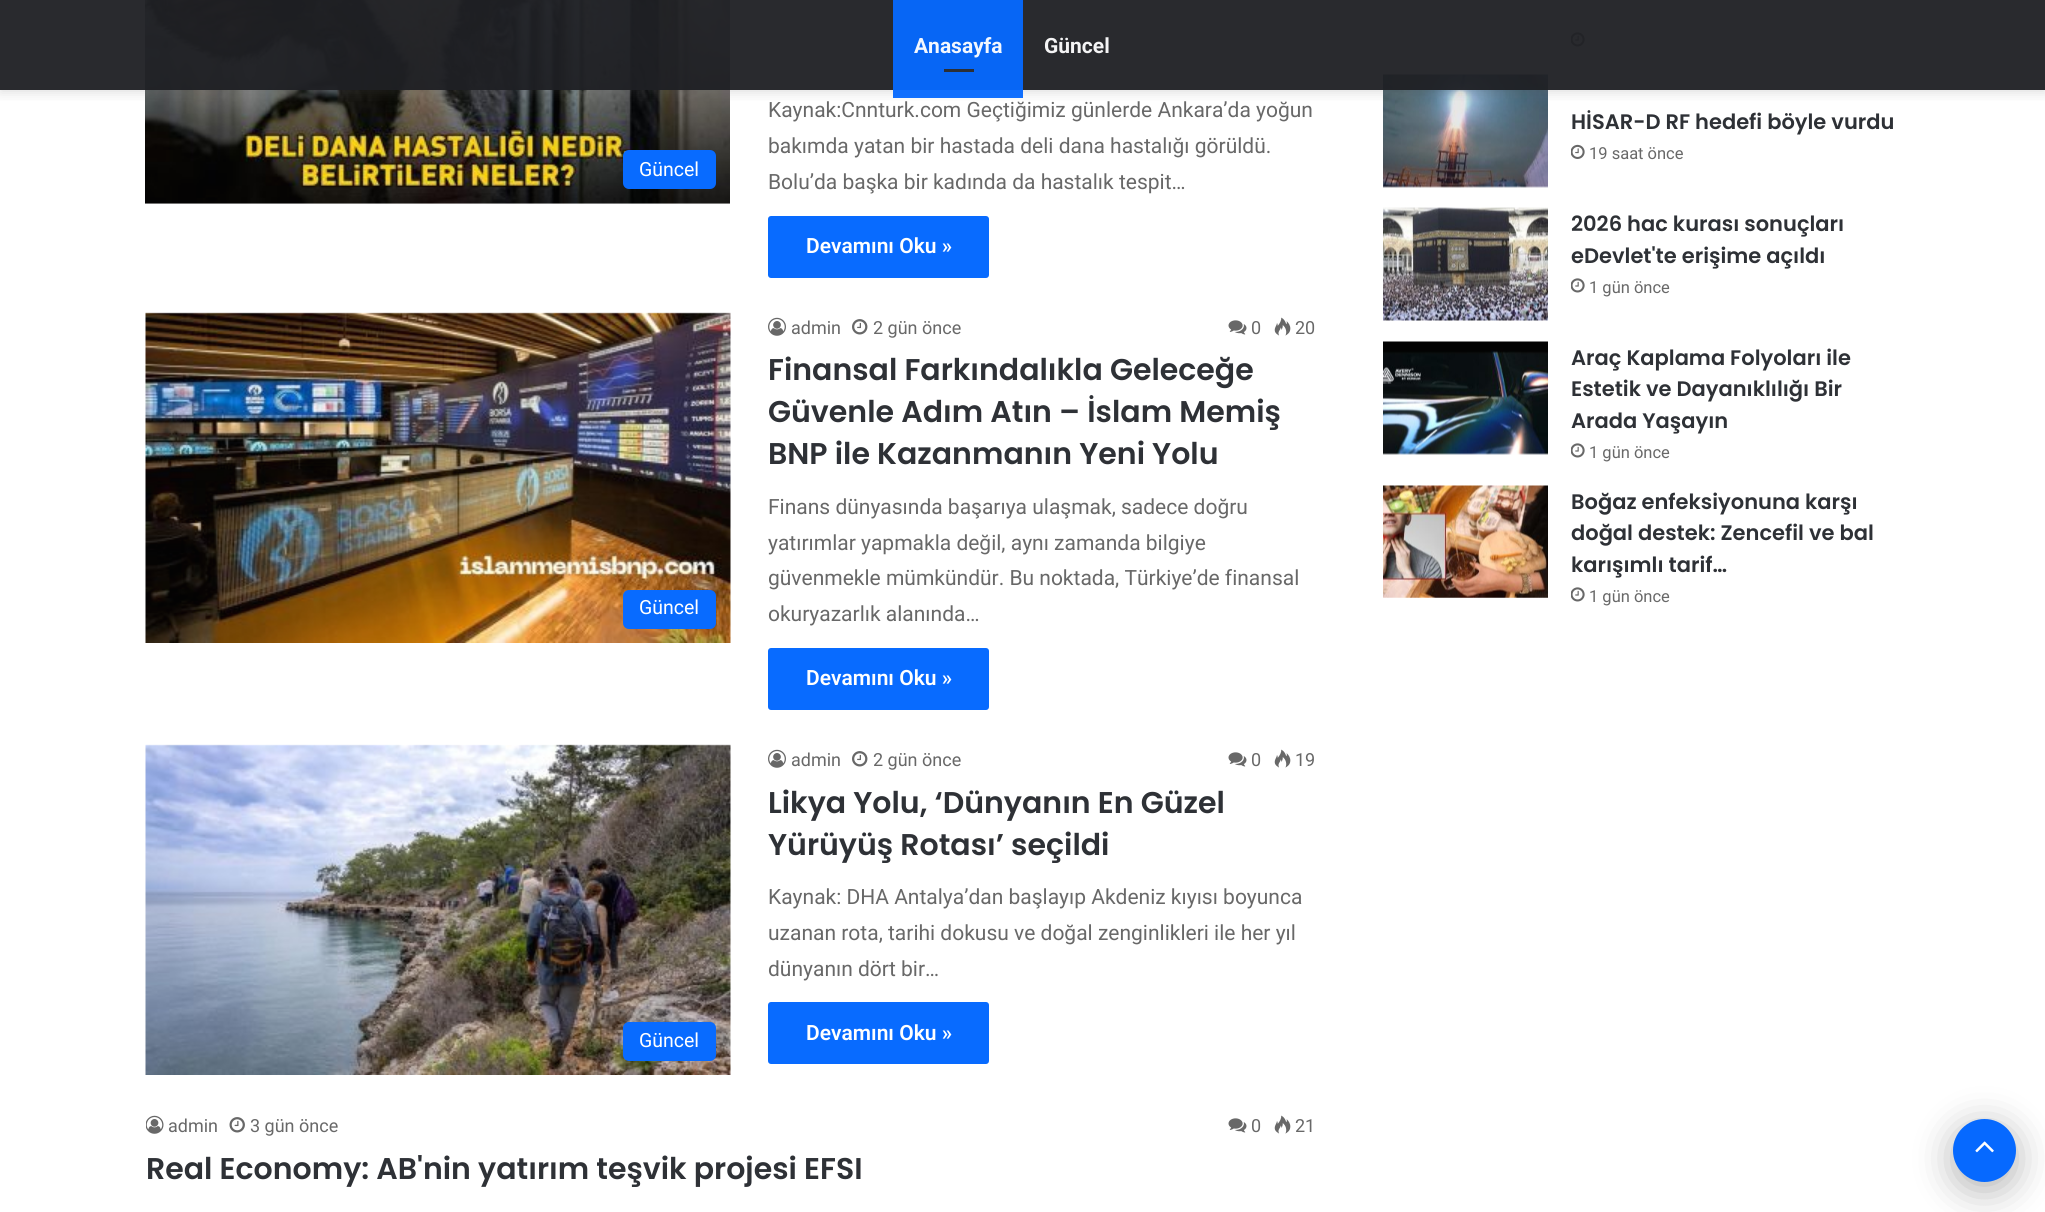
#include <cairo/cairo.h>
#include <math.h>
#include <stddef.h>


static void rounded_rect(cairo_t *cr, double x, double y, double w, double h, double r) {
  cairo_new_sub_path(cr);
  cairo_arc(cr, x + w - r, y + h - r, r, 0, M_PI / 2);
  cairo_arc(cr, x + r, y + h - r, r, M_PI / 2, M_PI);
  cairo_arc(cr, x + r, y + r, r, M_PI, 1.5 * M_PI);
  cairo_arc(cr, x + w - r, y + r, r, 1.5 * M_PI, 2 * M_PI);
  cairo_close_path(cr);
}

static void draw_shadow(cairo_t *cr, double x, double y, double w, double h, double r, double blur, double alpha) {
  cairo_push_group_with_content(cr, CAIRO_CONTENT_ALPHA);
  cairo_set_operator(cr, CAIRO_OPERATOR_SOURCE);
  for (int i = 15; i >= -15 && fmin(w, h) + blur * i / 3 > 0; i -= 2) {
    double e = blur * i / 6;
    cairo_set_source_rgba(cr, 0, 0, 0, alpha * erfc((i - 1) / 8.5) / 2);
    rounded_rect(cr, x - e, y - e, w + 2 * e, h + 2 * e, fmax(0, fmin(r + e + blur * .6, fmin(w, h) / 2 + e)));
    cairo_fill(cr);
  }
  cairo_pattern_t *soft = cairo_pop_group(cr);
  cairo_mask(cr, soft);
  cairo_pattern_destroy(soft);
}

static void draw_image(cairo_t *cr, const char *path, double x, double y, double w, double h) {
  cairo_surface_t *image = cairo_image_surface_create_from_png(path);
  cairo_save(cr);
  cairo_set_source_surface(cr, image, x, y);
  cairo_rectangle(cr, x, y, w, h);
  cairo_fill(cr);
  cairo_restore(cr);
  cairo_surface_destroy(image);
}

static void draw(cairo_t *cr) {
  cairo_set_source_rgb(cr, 1, 1, 1);
  cairo_paint(cr);
  draw_image(cr, "images/1.png", 145, 0, 585, 204);
  draw_image(cr, "images/10.png", 1571, 32, 14, 15);
  draw_image(cr, "images/11.png", 1383, 74, 165, 114);
  cairo_save(cr);
  cairo_rectangle(cr, 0, 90, 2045, 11);
  cairo_clip(cr);
  cairo_set_source_rgb(cr, 99 / 255.0, 99 / 255.0, 99 / 255.0);
  draw_shadow(cr, 0, 3, 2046, 90, 0, 6, 0.2);
  cairo_restore(cr);
  cairo_set_source_rgba(cr, 31 / 255.0, 32 / 255.0, 36 / 255.0, 0.95);
  cairo_rectangle(cr, 0, 0, 2045, 90);
  cairo_fill(cr);
  cairo_set_source_rgba(cr, 6 / 255.0, 105 / 255.0, 1, 0.95);
  cairo_rectangle(cr, 893, 90, 130, 8);
  cairo_fill(cr);
  cairo_rectangle(cr, 893, 0, 130, 90);
  cairo_fill(cr);
  cairo_set_source_rgb(cr, 44 / 255.0, 47 / 255.0, 52 / 255.0);
  cairo_rectangle(cr, 944, 69, 30, 3);
  cairo_fill(cr);
  cairo_set_source_rgb(cr, 8 / 255.0, 107 / 255.0, 1);
  rounded_rect(cr, 623, 150, 93, 39, 6);
  cairo_fill(cr);
  rounded_rect(cr, 768, 216, 221, 62, 3);
  cairo_fill(cr);
  draw_image(cr, "images/2.png", 145, 312, 586, 331);
  rounded_rect(cr, 623, 590, 93, 39, 6);
  cairo_fill(cr);
  draw_image(cr, "images/3.png", 768, 317, 18, 19);
  draw_image(cr, "images/4.png", 852, 319, 16, 16);
  draw_image(cr, "images/5.png", 1228, 320, 19, 15);
  draw_image(cr, "images/6.png", 1274, 317, 17, 19);
  rounded_rect(cr, 768, 648, 221, 62, 3);
  cairo_fill(cr);
  draw_image(cr, "images/7.png", 145, 744, 586, 331);
  rounded_rect(cr, 623, 1022, 93, 39, 6);
  cairo_fill(cr);
  draw_image(cr, "images/3.png", 768, 749, 18, 19);
  draw_image(cr, "images/4.png", 852, 751, 16, 16);
  draw_image(cr, "images/5.png", 1228, 752, 19, 15);
  draw_image(cr, "images/6.png", 1274, 749, 17, 19);
  rounded_rect(cr, 768, 1002, 221, 62, 3);
  cairo_fill(cr);
  draw_image(cr, "images/8.png", 146, 1115, 18, 19);
  draw_image(cr, "images/9.png", 229, 1117, 16, 16);
  draw_image(cr, "images/5.png", 1228, 1118, 19, 15);
  draw_image(cr, "images/6.png", 1274, 1115, 17, 19);
  draw_image(cr, "images/12.png", 1571, 144, 14, 15);
  draw_image(cr, "images/13.png", 1383, 207, 165, 114);
  draw_image(cr, "images/10.png", 1571, 278, 14, 15);
  draw_image(cr, "images/14.png", 1383, 341, 165, 114);
  draw_image(cr, "images/10.png", 1571, 443, 14, 15);
  draw_image(cr, "images/15.png", 1383, 485, 165, 113);
  draw_image(cr, "images/10.png", 1571, 587, 14, 15);
  cairo_set_source_rgb(cr, 0, 0, 0);
  draw_shadow(cr, 1953, 1127, 63, 63, 31.5, 19, 0.3);
  cairo_set_source_rgb(cr, 6 / 255.0, 105 / 255.0, 1);
  cairo_arc(cr, 1984.5, 1150.5, 31.5, 0, 2 * M_PI);
  cairo_fill(cr);
  draw_image(cr, "images/16.png", 1975, 1141, 19, 12);
  cairo_select_font_face(cr, "Roboto", CAIRO_FONT_SLANT_NORMAL, CAIRO_FONT_WEIGHT_BOLD);
  cairo_set_font_size(cr, 21);
  cairo_set_source_rgb(cr, 243 / 255.0, 247 / 255.0, 254 / 255.0);
  cairo_move_to(cr, 914, 53);
  cairo_show_text(cr, "Anasayfa");
  cairo_set_source_rgb(cr, 244 / 255.0, 244 / 255.0, 245 / 255.0);
  cairo_move_to(cr, 1044, 53);
  cairo_show_text(cr, "Güncel");
  cairo_select_font_face(cr, "Roboto", CAIRO_FONT_SLANT_NORMAL, CAIRO_FONT_WEIGHT_NORMAL);
  cairo_set_font_size(cr, 19.5);
  cairo_set_source_rgb(cr, 1, 1, 1);
  cairo_move_to(cr, 639, 176);
  cairo_show_text(cr, "Güncel");
  cairo_set_font_size(cr, 21);
  cairo_set_source_rgb(cr, 104 / 255.0, 104 / 255.0, 104 / 255.0);
  cairo_move_to(cr, 768, 117);
  cairo_show_text(cr, "Kaynak:Cnnturk.com Geçtiğimiz günlerde Ankara’da yoğun");
  cairo_move_to(cr, 768, 153);
  cairo_show_text(cr, "bakımda yatan bir hastada deli dana hastalığı görüldü.");
  cairo_move_to(cr, 768, 189);
  cairo_show_text(cr, "Bolu’da başka bir kadında da hastalık tespit…");
  cairo_select_font_face(cr, "Roboto SemiBold", CAIRO_FONT_SLANT_NORMAL, CAIRO_FONT_WEIGHT_NORMAL);
  cairo_set_source_rgb(cr, 1, 1, 1);
  cairo_move_to(cr, 806, 253);
  cairo_show_text(cr, "Devamını Oku »");
  cairo_select_font_face(cr, "Roboto", CAIRO_FONT_SLANT_NORMAL, CAIRO_FONT_WEIGHT_NORMAL);
  cairo_set_font_size(cr, 19.5);
  cairo_move_to(cr, 639, 614);
  cairo_show_text(cr, "Güncel");
  cairo_set_font_size(cr, 18);
  cairo_set_source_rgb(cr, 104 / 255.0, 104 / 255.0, 104 / 255.0);
  cairo_move_to(cr, 791, 334);
  cairo_show_text(cr, "admin");
  cairo_move_to(cr, 873, 334);
  cairo_show_text(cr, "2 gün önce");
  cairo_move_to(cr, 1251, 334);
  cairo_show_text(cr, "0");
  cairo_move_to(cr, 1295, 334);
  cairo_show_text(cr, "20");
  cairo_select_font_face(cr, "Poppins SemiBold", CAIRO_FONT_SLANT_NORMAL, CAIRO_FONT_WEIGHT_NORMAL);
  cairo_set_font_size(cr, 30);
  cairo_set_source_rgb(cr, 46 / 255.0, 49 / 255.0, 54 / 255.0);
  cairo_move_to(cr, 768, 380);
  cairo_show_text(cr, "Finansal Farkındalıkla Geleceğe");
  cairo_move_to(cr, 768, 422);
  cairo_show_text(cr, "Güvenle Adım Atın – İslam Memiş");
  cairo_move_to(cr, 768, 464);
  cairo_show_text(cr, "BNP ile Kazanmanın Yeni Yolu");
  cairo_select_font_face(cr, "Roboto", CAIRO_FONT_SLANT_NORMAL, CAIRO_FONT_WEIGHT_NORMAL);
  cairo_set_font_size(cr, 21);
  cairo_set_source_rgb(cr, 104 / 255.0, 104 / 255.0, 104 / 255.0);
  cairo_move_to(cr, 768, 514);
  cairo_show_text(cr, "Finans dünyasında başarıya ulaşmak, sadece doğru");
  cairo_move_to(cr, 768, 550);
  cairo_show_text(cr, "yatırımlar yapmakla değil, aynı zamanda bilgiye");
  cairo_move_to(cr, 768, 585);
  cairo_show_text(cr, "güvenmekle mümkündür. Bu noktada, Türkiye’de finansal");
  cairo_move_to(cr, 768, 621);
  cairo_show_text(cr, "okuryazarlık alanında…");
  cairo_select_font_face(cr, "Roboto SemiBold", CAIRO_FONT_SLANT_NORMAL, CAIRO_FONT_WEIGHT_NORMAL);
  cairo_set_source_rgb(cr, 1, 1, 1);
  cairo_move_to(cr, 806, 685);
  cairo_show_text(cr, "Devamını Oku »");
  cairo_select_font_face(cr, "Roboto", CAIRO_FONT_SLANT_NORMAL, CAIRO_FONT_WEIGHT_NORMAL);
  cairo_set_font_size(cr, 19.5);
  cairo_move_to(cr, 639, 1047);
  cairo_show_text(cr, "Güncel");
  cairo_set_font_size(cr, 18);
  cairo_set_source_rgb(cr, 104 / 255.0, 104 / 255.0, 104 / 255.0);
  cairo_move_to(cr, 791, 766);
  cairo_show_text(cr, "admin");
  cairo_move_to(cr, 873, 766);
  cairo_show_text(cr, "2 gün önce");
  cairo_move_to(cr, 1251, 766);
  cairo_show_text(cr, "0");
  cairo_move_to(cr, 1295, 766);
  cairo_show_text(cr, "19");
  cairo_select_font_face(cr, "Poppins SemiBold", CAIRO_FONT_SLANT_NORMAL, CAIRO_FONT_WEIGHT_NORMAL);
  cairo_set_font_size(cr, 30);
  cairo_set_source_rgb(cr, 46 / 255.0, 49 / 255.0, 54 / 255.0);
  cairo_move_to(cr, 768, 813);
  cairo_show_text(cr, "Likya Yolu, ‘Dünyanın En Güzel");
  cairo_move_to(cr, 768, 855);
  cairo_show_text(cr, "Yürüyüş Rotası’ seçildi");
  cairo_select_font_face(cr, "Roboto", CAIRO_FONT_SLANT_NORMAL, CAIRO_FONT_WEIGHT_NORMAL);
  cairo_set_font_size(cr, 21);
  cairo_set_source_rgb(cr, 104 / 255.0, 104 / 255.0, 104 / 255.0);
  cairo_move_to(cr, 768, 904);
  cairo_show_text(cr, "Kaynak: DHA Antalya’dan başlayıp Akdeniz kıyısı boyunca");
  cairo_move_to(cr, 768, 940);
  cairo_show_text(cr, "uzanan rota, tarihi dokusu ve doğal zenginlikleri ile her yıl");
  cairo_move_to(cr, 768, 976);
  cairo_show_text(cr, "dünyanın dört bir…");
  cairo_select_font_face(cr, "Roboto SemiBold", CAIRO_FONT_SLANT_NORMAL, CAIRO_FONT_WEIGHT_NORMAL);
  cairo_set_source_rgb(cr, 1, 1, 1);
  cairo_move_to(cr, 806, 1040);
  cairo_show_text(cr, "Devamını Oku »");
  cairo_select_font_face(cr, "Roboto", CAIRO_FONT_SLANT_NORMAL, CAIRO_FONT_WEIGHT_NORMAL);
  cairo_set_font_size(cr, 18);
  cairo_set_source_rgb(cr, 104 / 255.0, 104 / 255.0, 104 / 255.0);
  cairo_move_to(cr, 168, 1132);
  cairo_show_text(cr, "admin");
  cairo_move_to(cr, 250, 1132);
  cairo_show_text(cr, "3 gün önce");
  cairo_move_to(cr, 1251, 1132);
  cairo_show_text(cr, "0");
  cairo_move_to(cr, 1295, 1132);
  cairo_show_text(cr, "21");
  cairo_select_font_face(cr, "Poppins SemiBold", CAIRO_FONT_SLANT_NORMAL, CAIRO_FONT_WEIGHT_NORMAL);
  cairo_set_font_size(cr, 30);
  cairo_set_source_rgb(cr, 46 / 255.0, 49 / 255.0, 54 / 255.0);
  cairo_move_to(cr, 146, 1179);
  cairo_show_text(cr, "Real Economy: AB'nin yatırım teşvik projesi EFSI");
  cairo_set_font_size(cr, 21);
  cairo_move_to(cr, 1571, 129);
  cairo_show_text(cr, "HİSAR-D RF hedefi böyle vurdu");
  cairo_select_font_face(cr, "Roboto", CAIRO_FONT_SLANT_NORMAL, CAIRO_FONT_WEIGHT_NORMAL);
  cairo_set_font_size(cr, 16.5);
  cairo_set_source_rgb(cr, 104 / 255.0, 104 / 255.0, 104 / 255.0);
  cairo_move_to(cr, 1589, 159);
  cairo_show_text(cr, "19 saat önce");
  cairo_select_font_face(cr, "Poppins SemiBold", CAIRO_FONT_SLANT_NORMAL, CAIRO_FONT_WEIGHT_NORMAL);
  cairo_set_font_size(cr, 21);
  cairo_set_source_rgb(cr, 46 / 255.0, 49 / 255.0, 54 / 255.0);
  cairo_move_to(cr, 1571, 231);
  cairo_show_text(cr, "2026 hac kurası sonuçları");
  cairo_move_to(cr, 1571, 263);
  cairo_show_text(cr, "eDevlet'te erişime açıldı");
  cairo_select_font_face(cr, "Roboto", CAIRO_FONT_SLANT_NORMAL, CAIRO_FONT_WEIGHT_NORMAL);
  cairo_set_font_size(cr, 16.5);
  cairo_set_source_rgb(cr, 104 / 255.0, 104 / 255.0, 104 / 255.0);
  cairo_move_to(cr, 1589, 293);
  cairo_show_text(cr, "1 gün önce");
  cairo_select_font_face(cr, "Poppins SemiBold", CAIRO_FONT_SLANT_NORMAL, CAIRO_FONT_WEIGHT_NORMAL);
  cairo_set_font_size(cr, 21);
  cairo_set_source_rgb(cr, 46 / 255.0, 49 / 255.0, 54 / 255.0);
  cairo_move_to(cr, 1571, 365);
  cairo_show_text(cr, "Araç Kaplama Folyoları ile");
  cairo_move_to(cr, 1571, 396);
  cairo_show_text(cr, "Estetik ve Dayanıklılığı Bir");
  cairo_move_to(cr, 1571, 428);
  cairo_show_text(cr, "Arada Yaşayın");
  cairo_select_font_face(cr, "Roboto", CAIRO_FONT_SLANT_NORMAL, CAIRO_FONT_WEIGHT_NORMAL);
  cairo_set_font_size(cr, 16.5);
  cairo_set_source_rgb(cr, 104 / 255.0, 104 / 255.0, 104 / 255.0);
  cairo_move_to(cr, 1589, 458);
  cairo_show_text(cr, "1 gün önce");
  cairo_select_font_face(cr, "Poppins SemiBold", CAIRO_FONT_SLANT_NORMAL, CAIRO_FONT_WEIGHT_NORMAL);
  cairo_set_font_size(cr, 21);
  cairo_set_source_rgb(cr, 46 / 255.0, 49 / 255.0, 54 / 255.0);
  cairo_move_to(cr, 1571, 509);
  cairo_show_text(cr, "Boğaz enfeksiyonuna karşı");
  cairo_move_to(cr, 1571, 540);
  cairo_show_text(cr, "doğal destek: Zencefil ve bal");
  cairo_move_to(cr, 1571, 572);
  cairo_show_text(cr, "karışımlı tarif…");
  cairo_select_font_face(cr, "Roboto", CAIRO_FONT_SLANT_NORMAL, CAIRO_FONT_WEIGHT_NORMAL);
  cairo_set_font_size(cr, 16.5);
  cairo_set_source_rgb(cr, 104 / 255.0, 104 / 255.0, 104 / 255.0);
  cairo_move_to(cr, 1589, 602);
  cairo_show_text(cr, "1 gün önce");
}

int main(void) {
  cairo_surface_t *surface = cairo_image_surface_create(CAIRO_FORMAT_RGB24, 2045, 1212);
  cairo_t *cr = cairo_create(surface);
  cairo_font_options_t *options = cairo_font_options_create();
  cairo_font_options_set_hint_metrics(options, CAIRO_HINT_METRICS_OFF);
  cairo_font_options_set_hint_style(options, CAIRO_HINT_STYLE_NONE);
  cairo_set_font_options(cr, options);
  cairo_set_miter_limit(cr, 4);
  draw(cr);
  cairo_surface_write_to_png(surface, "out.png");
  cairo_font_options_destroy(options);
  cairo_destroy(cr);
  cairo_surface_destroy(surface);
  return 0;
}
